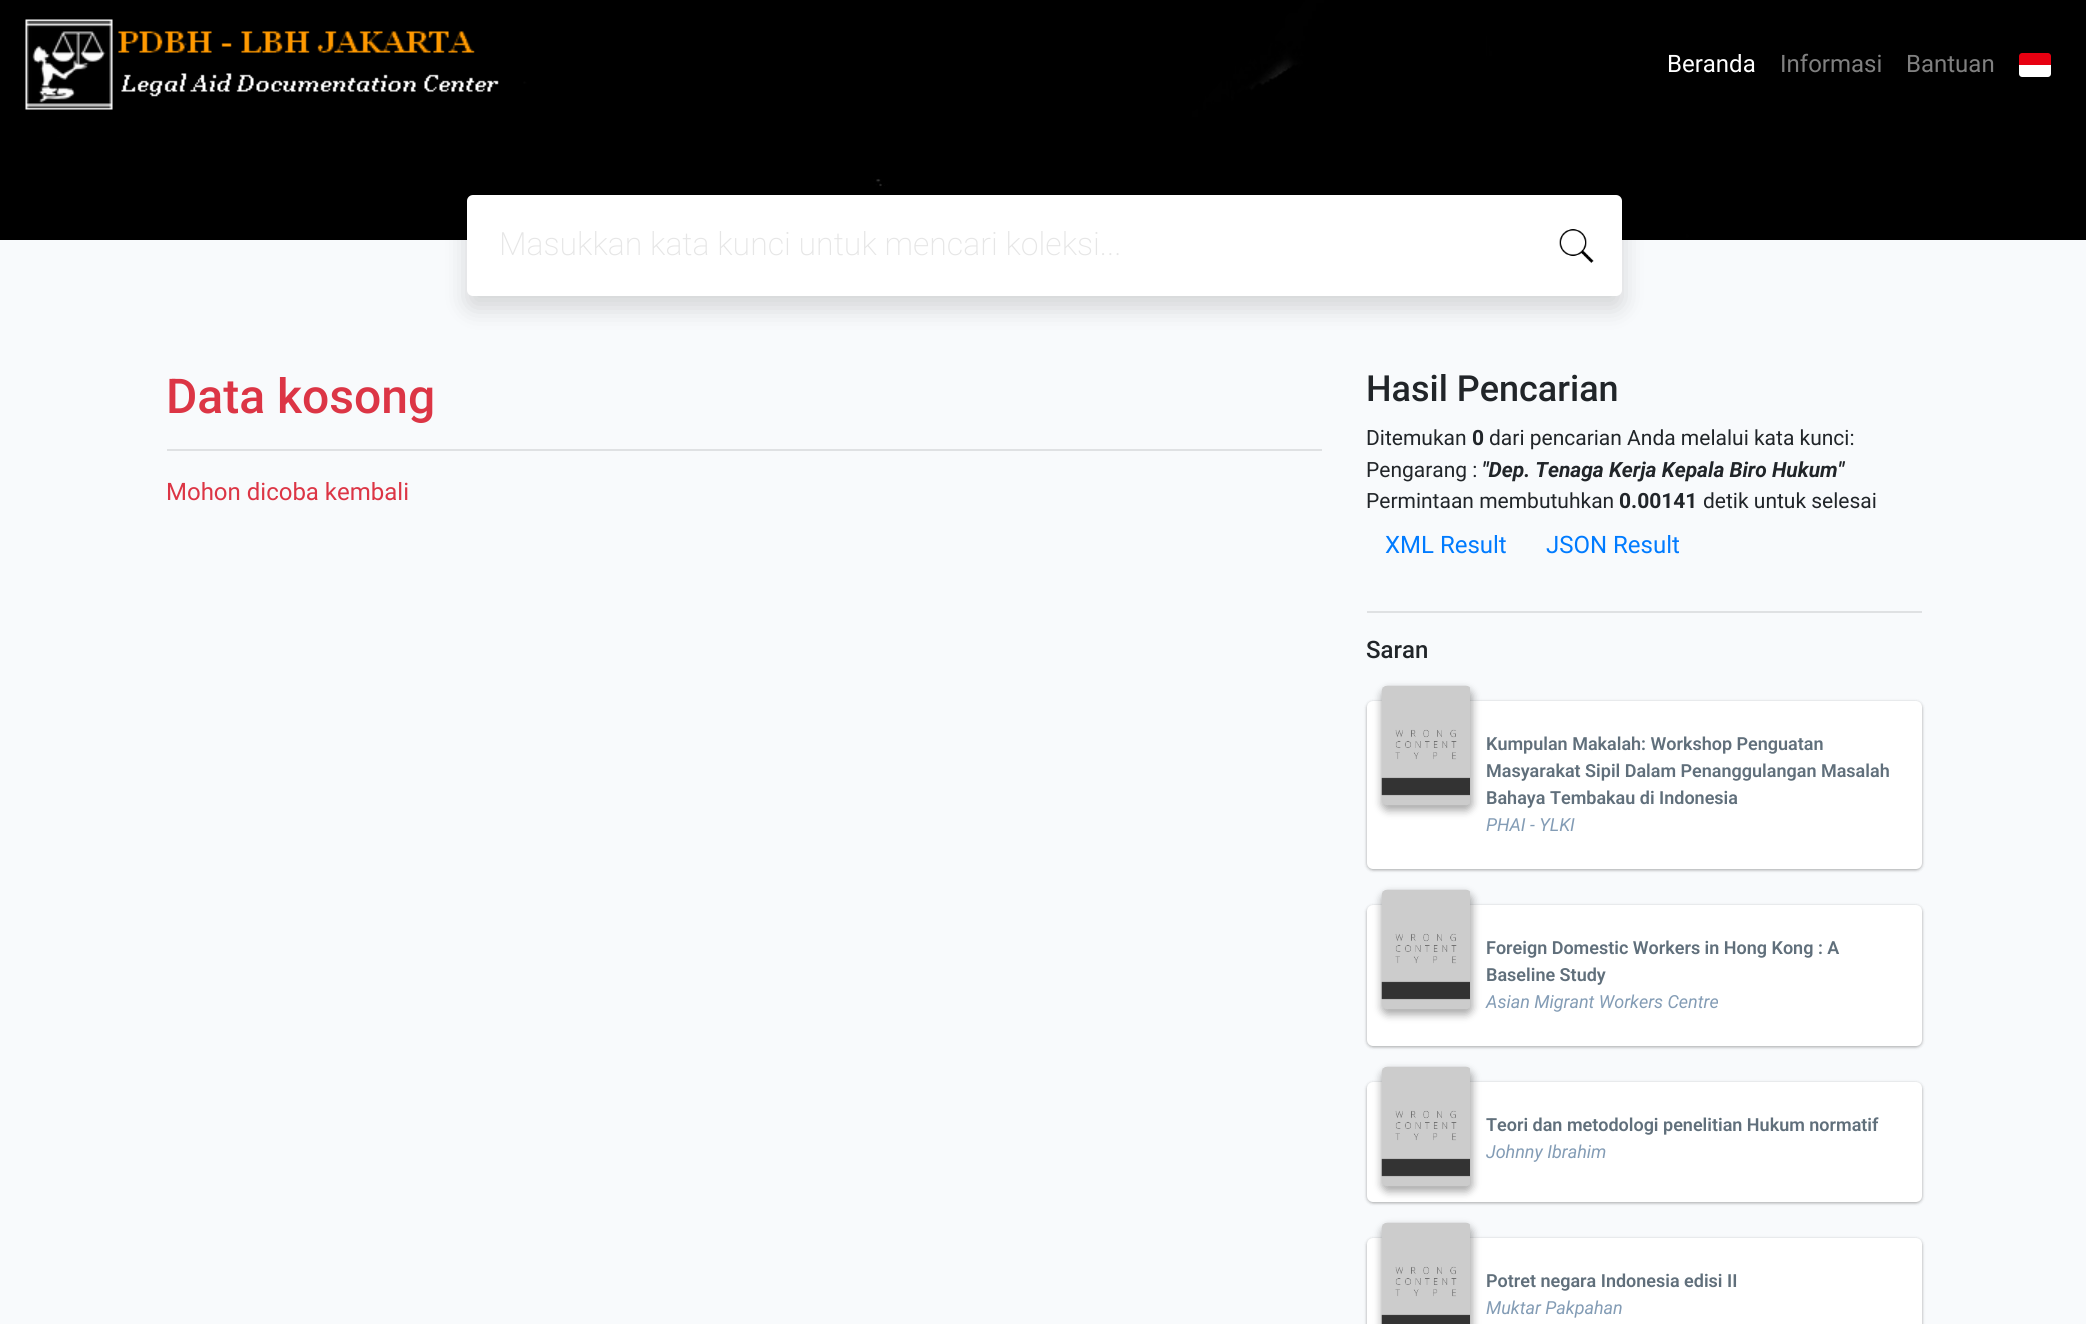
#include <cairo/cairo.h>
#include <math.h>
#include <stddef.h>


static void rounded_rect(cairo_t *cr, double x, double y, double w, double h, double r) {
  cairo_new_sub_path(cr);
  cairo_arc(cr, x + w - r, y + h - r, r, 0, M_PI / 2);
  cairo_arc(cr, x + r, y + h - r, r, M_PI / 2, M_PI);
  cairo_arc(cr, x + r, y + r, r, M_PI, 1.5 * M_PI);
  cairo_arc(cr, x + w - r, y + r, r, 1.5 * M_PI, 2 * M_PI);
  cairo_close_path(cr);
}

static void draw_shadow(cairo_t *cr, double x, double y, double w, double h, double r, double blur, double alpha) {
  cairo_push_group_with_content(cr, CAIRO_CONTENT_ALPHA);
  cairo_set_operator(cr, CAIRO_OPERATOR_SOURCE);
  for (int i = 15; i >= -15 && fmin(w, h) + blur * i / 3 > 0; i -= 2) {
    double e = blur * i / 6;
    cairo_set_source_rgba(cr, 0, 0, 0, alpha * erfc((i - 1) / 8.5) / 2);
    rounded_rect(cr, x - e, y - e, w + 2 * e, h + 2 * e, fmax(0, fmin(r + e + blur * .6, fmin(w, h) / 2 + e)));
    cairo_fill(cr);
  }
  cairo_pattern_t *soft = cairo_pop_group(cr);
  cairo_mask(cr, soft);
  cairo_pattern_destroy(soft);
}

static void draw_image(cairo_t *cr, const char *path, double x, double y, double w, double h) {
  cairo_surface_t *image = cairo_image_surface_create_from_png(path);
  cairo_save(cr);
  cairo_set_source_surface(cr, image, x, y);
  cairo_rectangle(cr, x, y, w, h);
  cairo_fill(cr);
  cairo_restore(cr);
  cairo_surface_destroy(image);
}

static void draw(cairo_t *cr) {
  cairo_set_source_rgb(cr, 248 / 255.0, 250 / 255.0, 252 / 255.0);
  cairo_paint(cr);
  draw_image(cr, "images/1.png", 0, 0, 60, 240);
  draw_image(cr, "images/2.png", 60, 0, 2026, 240);
  draw_image(cr, "images/3.png", 25, 19, 474, 91);
  cairo_set_source_rgb(cr, 231 / 255.0, 0, 17 / 255.0);
  cairo_new_path(cr);
  cairo_move_to(cr, 2022, 53);
  cairo_line_to(cr, 2048, 53);
  cairo_curve_to(cr, 2049.5, 53, 2051, 54.5, 2051, 56);
  cairo_line_to(cr, 2051, 65);
  cairo_line_to(cr, 2019, 65);
  cairo_line_to(cr, 2019, 56);
  cairo_curve_to(cr, 2019, 54.5, 2020.5, 53, 2022, 53);
  cairo_close_path(cr);
  cairo_fill(cr);
  cairo_set_source_rgb(cr, 1, 1, 1);
  cairo_new_path(cr);
  cairo_move_to(cr, 2019, 65);
  cairo_line_to(cr, 2051, 65);
  cairo_line_to(cr, 2051, 74);
  cairo_curve_to(cr, 2051, 75.5, 2049.5, 77, 2048, 77);
  cairo_line_to(cr, 2022, 77);
  cairo_curve_to(cr, 2020.5, 77, 2019, 75.5, 2019, 74);
  cairo_close_path(cr);
  cairo_fill(cr);
  cairo_set_source_rgb(cr, 0, 0, 0);
  draw_shadow(cr, 467, 207, 1155, 101, 6, 12, 0.15);
  cairo_set_source_rgb(cr, 1, 1, 1);
  rounded_rect(cr, 467, 195, 1155, 101, 6);
  cairo_fill(cr);
  draw_image(cr, "images/4.png", 1559, 229, 35, 34);
  cairo_set_source_rgb(cr, 223 / 255.0, 225 / 255.0, 227 / 255.0);
  cairo_rectangle(cr, 167, 449, 1155, 2);
  cairo_fill(cr);
  cairo_rectangle(cr, 1367, 611, 555, 2);
  cairo_fill(cr);
  cairo_set_source_rgb(cr, 0, 0, 0);
  draw_shadow(cr, 1367, 702, 555, 168, 6, 1.5, 0.24);
  draw_shadow(cr, 1367, 702, 555, 168, 6, 2, 0.12);
  cairo_set_source_rgb(cr, 1, 1, 1);
  rounded_rect(cr, 1367, 701, 555, 168, 6);
  cairo_fill(cr);
  cairo_set_source_rgb(cr, 0, 0, 0);
  draw_shadow(cr, 1382, 690, 90, 120, 6, 4.5, 0.23);
  draw_shadow(cr, 1382, 690, 90, 120, 6, 4.5, 0.16);
  draw_image(cr, "images/5.png", 1381, 685, 89, 121);
  draw_shadow(cr, 1367, 906, 555, 141, 6, 1.5, 0.24);
  draw_shadow(cr, 1367, 906, 555, 141, 6, 2, 0.12);
  cairo_set_source_rgb(cr, 1, 1, 1);
  rounded_rect(cr, 1367, 905, 555, 141, 6);
  cairo_fill(cr);
  cairo_set_source_rgb(cr, 0, 0, 0);
  draw_shadow(cr, 1382, 894, 90, 120, 6, 4.5, 0.23);
  draw_shadow(cr, 1382, 894, 90, 120, 6, 4.5, 0.16);
  draw_image(cr, "images/6.png", 1381, 889, 89, 121);
  draw_shadow(cr, 1367, 1083, 555, 120, 6, 1.5, 0.24);
  draw_shadow(cr, 1367, 1083, 555, 120, 6, 2, 0.12);
  cairo_set_source_rgb(cr, 1, 1, 1);
  rounded_rect(cr, 1367, 1082, 555, 120, 6);
  cairo_fill(cr);
  cairo_set_source_rgb(cr, 0, 0, 0);
  draw_shadow(cr, 1382, 1071, 90, 120, 6, 4.5, 0.23);
  draw_shadow(cr, 1382, 1071, 90, 120, 6, 4.5, 0.16);
  draw_image(cr, "images/6.png", 1381, 1066, 89, 121);
  draw_shadow(cr, 1367, 1239, 555, 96, 6, 1.5, 0.24);
  draw_shadow(cr, 1367, 1239, 555, 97, 6, 2, 0.12);
  cairo_set_source_rgb(cr, 1, 1, 1);
  rounded_rect(cr, 1367, 1238, 555, 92, 6);
  cairo_fill(cr);
  cairo_set_source_rgb(cr, 0, 0, 0);
  draw_shadow(cr, 1382, 1227, 90, 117, 6, 4.5, 0.23);
  draw_shadow(cr, 1382, 1227, 90, 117, 6, 4.5, 0.16);
  draw_image(cr, "images/7.png", 1381, 1222, 89, 102);
  cairo_select_font_face(cr, "Roboto", CAIRO_FONT_SLANT_NORMAL, CAIRO_FONT_WEIGHT_NORMAL);
  cairo_set_font_size(cr, 24);
  cairo_set_source_rgb(cr, 1, 1, 1);
  cairo_move_to(cr, 1667, 72);
  cairo_show_text(cr, "Beranda");
  cairo_set_source_rgb(cr, 128 / 255.0, 128 / 255.0, 128 / 255.0);
  cairo_move_to(cr, 1780, 72);
  cairo_show_text(cr, "Informasi");
  cairo_move_to(cr, 1906, 72);
  cairo_show_text(cr, "Bantuan");
  cairo_select_font_face(cr, "Roboto ExtraLight", CAIRO_FONT_SLANT_NORMAL, CAIRO_FONT_WEIGHT_NORMAL);
  cairo_set_font_size(cr, 32);
  cairo_set_source_rgb(cr, 230 / 255.0, 230 / 255.0, 230 / 255.0);
  cairo_move_to(cr, 499, 255);
  cairo_show_text(cr, "Masukkan kata kunci untuk mencari koleksi...");
  cairo_select_font_face(cr, "Roboto Medium", CAIRO_FONT_SLANT_NORMAL, CAIRO_FONT_WEIGHT_NORMAL);
  cairo_set_font_size(cr, 48);
  cairo_set_source_rgb(cr, 220 / 255.0, 53 / 255.0, 69 / 255.0);
  cairo_move_to(cr, 166, 413);
  cairo_show_text(cr, "Data kosong");
  cairo_select_font_face(cr, "Roboto", CAIRO_FONT_SLANT_NORMAL, CAIRO_FONT_WEIGHT_NORMAL);
  cairo_set_font_size(cr, 24);
  cairo_move_to(cr, 166, 500);
  cairo_show_text(cr, "Mohon dicoba kembali");
  cairo_select_font_face(cr, "Roboto Medium", CAIRO_FONT_SLANT_NORMAL, CAIRO_FONT_WEIGHT_NORMAL);
  cairo_set_font_size(cr, 36);
  cairo_set_source_rgb(cr, 33 / 255.0, 37 / 255.0, 41 / 255.0);
  cairo_move_to(cr, 1366, 401);
  cairo_show_text(cr, "Hasil Pencarian");
  cairo_select_font_face(cr, "Roboto", CAIRO_FONT_SLANT_NORMAL, CAIRO_FONT_WEIGHT_NORMAL);
  cairo_set_font_size(cr, 21);
  cairo_move_to(cr, 1366, 445);
  cairo_show_text(cr, "Ditemukan");
  cairo_select_font_face(cr, "Roboto", CAIRO_FONT_SLANT_NORMAL, CAIRO_FONT_WEIGHT_BOLD);
  cairo_move_to(cr, 1472, 445);
  cairo_show_text(cr, "0");
  cairo_select_font_face(cr, "Roboto", CAIRO_FONT_SLANT_NORMAL, CAIRO_FONT_WEIGHT_NORMAL);
  cairo_move_to(cr, 1489, 445);
  cairo_show_text(cr, "dari pencarian Anda melalui kata kunci:");
  cairo_move_to(cr, 1366, 477);
  cairo_show_text(cr, "Pengarang :");
  cairo_select_font_face(cr, "Roboto", CAIRO_FONT_SLANT_ITALIC, CAIRO_FONT_WEIGHT_BOLD);
  cairo_move_to(cr, 1482, 477);
  cairo_show_text(cr, "\"Dep. Tenaga Kerja Kepala Biro Hukum\"");
  cairo_select_font_face(cr, "Roboto", CAIRO_FONT_SLANT_NORMAL, CAIRO_FONT_WEIGHT_NORMAL);
  cairo_move_to(cr, 1366, 508);
  cairo_show_text(cr, "Permintaan membutuhkan");
  cairo_select_font_face(cr, "Roboto", CAIRO_FONT_SLANT_NORMAL, CAIRO_FONT_WEIGHT_BOLD);
  cairo_move_to(cr, 1619, 508);
  cairo_show_text(cr, "0.00141");
  cairo_select_font_face(cr, "Roboto", CAIRO_FONT_SLANT_NORMAL, CAIRO_FONT_WEIGHT_NORMAL);
  cairo_move_to(cr, 1703, 508);
  cairo_show_text(cr, "detik untuk selesai");
  cairo_set_font_size(cr, 24);
  cairo_set_source_rgb(cr, 0, 123 / 255.0, 1);
  cairo_move_to(cr, 1385, 553);
  cairo_show_text(cr, "XML Result");
  cairo_move_to(cr, 1546, 553);
  cairo_show_text(cr, "JSON Result");
  cairo_select_font_face(cr, "Roboto Medium", CAIRO_FONT_SLANT_NORMAL, CAIRO_FONT_WEIGHT_NORMAL);
  cairo_set_source_rgb(cr, 33 / 255.0, 37 / 255.0, 41 / 255.0);
  cairo_move_to(cr, 1366, 658);
  cairo_show_text(cr, "Saran");
  cairo_select_font_face(cr, "Roboto SemiBold", CAIRO_FONT_SLANT_NORMAL, CAIRO_FONT_WEIGHT_NORMAL);
  cairo_set_font_size(cr, 18);
  cairo_set_source_rgb(cr, 96 / 255.0, 111 / 255.0, 123 / 255.0);
  cairo_move_to(cr, 1486, 750);
  cairo_show_text(cr, "Kumpulan Makalah: Workshop Penguatan");
  cairo_move_to(cr, 1486, 777);
  cairo_show_text(cr, "Masyarakat Sipil Dalam Penanggulangan Masalah");
  cairo_move_to(cr, 1486, 804);
  cairo_show_text(cr, "Bahaya Tembakau di Indonesia");
  cairo_select_font_face(cr, "Roboto", CAIRO_FONT_SLANT_ITALIC, CAIRO_FONT_WEIGHT_NORMAL);
  cairo_set_source_rgb(cr, 131 / 255.0, 156 / 255.0, 181 / 255.0);
  cairo_move_to(cr, 1486, 831);
  cairo_show_text(cr, "PHAI - YLKI");
  cairo_select_font_face(cr, "Roboto SemiBold", CAIRO_FONT_SLANT_NORMAL, CAIRO_FONT_WEIGHT_NORMAL);
  cairo_set_source_rgb(cr, 96 / 255.0, 111 / 255.0, 123 / 255.0);
  cairo_move_to(cr, 1486, 954);
  cairo_show_text(cr, "Foreign Domestic Workers in Hong Kong : A");
  cairo_move_to(cr, 1486, 981);
  cairo_show_text(cr, "Baseline Study");
  cairo_select_font_face(cr, "Roboto", CAIRO_FONT_SLANT_ITALIC, CAIRO_FONT_WEIGHT_NORMAL);
  cairo_set_source_rgb(cr, 131 / 255.0, 156 / 255.0, 181 / 255.0);
  cairo_move_to(cr, 1486, 1008);
  cairo_show_text(cr, "Asian Migrant Workers Centre");
  cairo_select_font_face(cr, "Roboto SemiBold", CAIRO_FONT_SLANT_NORMAL, CAIRO_FONT_WEIGHT_NORMAL);
  cairo_set_source_rgb(cr, 96 / 255.0, 111 / 255.0, 123 / 255.0);
  cairo_move_to(cr, 1486, 1131);
  cairo_show_text(cr, "Teori dan metodologi penelitian Hukum normatif");
  cairo_select_font_face(cr, "Roboto", CAIRO_FONT_SLANT_ITALIC, CAIRO_FONT_WEIGHT_NORMAL);
  cairo_set_source_rgb(cr, 131 / 255.0, 156 / 255.0, 181 / 255.0);
  cairo_move_to(cr, 1486, 1158);
  cairo_show_text(cr, "Johnny Ibrahim");
  cairo_select_font_face(cr, "Roboto SemiBold", CAIRO_FONT_SLANT_NORMAL, CAIRO_FONT_WEIGHT_NORMAL);
  cairo_set_source_rgb(cr, 96 / 255.0, 111 / 255.0, 123 / 255.0);
  cairo_move_to(cr, 1486, 1287);
  cairo_show_text(cr, "Potret negara Indonesia edisi II");
  cairo_select_font_face(cr, "Roboto", CAIRO_FONT_SLANT_ITALIC, CAIRO_FONT_WEIGHT_NORMAL);
  cairo_set_source_rgb(cr, 131 / 255.0, 156 / 255.0, 181 / 255.0);
  cairo_move_to(cr, 1486, 1314);
  cairo_show_text(cr, "Muktar Pakpahan");
}

int main(void) {
  cairo_surface_t *surface = cairo_image_surface_create(CAIRO_FORMAT_RGB24, 2086, 1324);
  cairo_t *cr = cairo_create(surface);
  cairo_font_options_t *options = cairo_font_options_create();
  cairo_font_options_set_hint_metrics(options, CAIRO_HINT_METRICS_OFF);
  cairo_font_options_set_hint_style(options, CAIRO_HINT_STYLE_NONE);
  cairo_set_font_options(cr, options);
  cairo_set_miter_limit(cr, 4);
  draw(cr);
  cairo_surface_write_to_png(surface, "out.png");
  cairo_font_options_destroy(options);
  cairo_destroy(cr);
  cairo_surface_destroy(surface);
  return 0;
}
